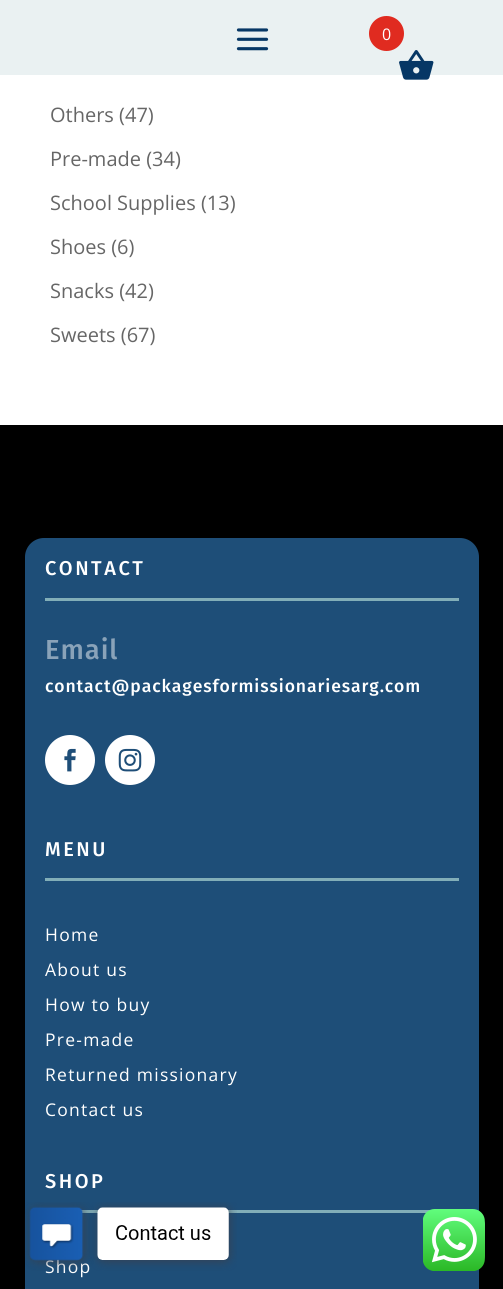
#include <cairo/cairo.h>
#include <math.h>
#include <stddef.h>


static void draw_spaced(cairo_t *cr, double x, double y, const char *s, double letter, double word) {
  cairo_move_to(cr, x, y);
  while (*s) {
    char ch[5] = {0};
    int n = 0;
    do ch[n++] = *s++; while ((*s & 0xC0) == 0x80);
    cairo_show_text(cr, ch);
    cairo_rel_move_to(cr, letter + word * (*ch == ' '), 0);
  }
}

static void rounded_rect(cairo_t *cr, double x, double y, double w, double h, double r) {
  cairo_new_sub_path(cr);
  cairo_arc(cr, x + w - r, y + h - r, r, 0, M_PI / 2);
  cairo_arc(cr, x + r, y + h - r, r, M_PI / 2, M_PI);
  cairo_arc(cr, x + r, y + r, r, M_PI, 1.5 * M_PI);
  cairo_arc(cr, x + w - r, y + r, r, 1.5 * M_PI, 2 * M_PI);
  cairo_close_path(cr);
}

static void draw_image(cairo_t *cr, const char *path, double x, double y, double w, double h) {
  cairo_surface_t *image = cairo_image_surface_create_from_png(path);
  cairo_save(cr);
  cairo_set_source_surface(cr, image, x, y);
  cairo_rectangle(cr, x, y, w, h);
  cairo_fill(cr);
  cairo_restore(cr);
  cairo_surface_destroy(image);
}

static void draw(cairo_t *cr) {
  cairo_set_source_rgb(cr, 1, 1, 1);
  cairo_paint(cr);
  cairo_set_source_rgb(cr, 234 / 255.0, 241 / 255.0, 242 / 255.0);
  cairo_rectangle(cr, 0, 0, 503, 75);
  cairo_fill(cr);
  draw_image(cr, "images/1.png", 399, 50, 35, 30);
  cairo_set_source_rgb(cr, 224 / 255.0, 43 / 255.0, 32 / 255.0);
  cairo_arc(cr, 386.5, 33.5, 17.5, 0, 2 * M_PI);
  cairo_fill(cr);
  draw_image(cr, "images/2.png", 236, 28, 33, 23);
  cairo_set_source_rgb(cr, 0, 0, 0);
  cairo_rectangle(cr, 0, 425, 503, 864);
  cairo_fill(cr);
  cairo_set_source_rgb(cr, 30 / 255.0, 78 / 255.0, 120 / 255.0);
  rounded_rect(cr, 25, 538, 454, 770, 19);
  cairo_fill(cr);
  cairo_set_source_rgb(cr, 130 / 255.0, 174 / 255.0, 184 / 255.0);
  cairo_rectangle(cr, 45, 598, 414, 3);
  cairo_fill(cr);
  cairo_set_source_rgb(cr, 1, 1, 1);
  cairo_arc(cr, 70, 760, 25, 0, 2 * M_PI);
  cairo_fill(cr);
  draw_image(cr, "images/3.png", 64, 748, 12, 24);
  cairo_arc(cr, 130, 760, 25, 0, 2 * M_PI);
  cairo_fill(cr);
  draw_image(cr, "images/4.png", 118, 748, 24, 24);
  cairo_set_source_rgb(cr, 130 / 255.0, 174 / 255.0, 184 / 255.0);
  cairo_rectangle(cr, 45, 878, 414, 3);
  cairo_fill(cr);
  cairo_rectangle(cr, 81, 1210, 349, 3);
  cairo_fill(cr);
  draw_image(cr, "images/6.png", 423, 1209, 62, 62);
  cairo_select_font_face(cr, "Open Sans", CAIRO_FONT_SLANT_NORMAL, CAIRO_FONT_WEIGHT_NORMAL);
  cairo_set_font_size(cr, 16);
  cairo_set_source_rgb(cr, 1, 1, 1);
  cairo_move_to(cr, 382, 40);
  cairo_show_text(cr, "0");
  cairo_set_font_size(cr, 20);
  cairo_set_source_rgb(cr, 102 / 255.0, 102 / 255.0, 102 / 255.0);
  cairo_move_to(cr, 50, 122);
  cairo_show_text(cr, "Others (47)");
  cairo_move_to(cr, 50, 166);
  cairo_show_text(cr, "Pre-made (34)");
  cairo_move_to(cr, 50, 210);
  cairo_show_text(cr, "School Supplies (13)");
  cairo_move_to(cr, 50, 254);
  cairo_show_text(cr, "Shoes (6)");
  cairo_move_to(cr, 50, 298);
  cairo_show_text(cr, "Snacks (42)");
  cairo_move_to(cr, 50, 342);
  cairo_show_text(cr, "Sweets (67)");
  cairo_select_font_face(cr, "Fira Sans Medium", CAIRO_FONT_SLANT_NORMAL, CAIRO_FONT_WEIGHT_NORMAL);
  cairo_set_source_rgb(cr, 1, 1, 1);
  draw_spaced(cr, 45, 575, "CONTACT", 2.5, 0);
  cairo_set_font_size(cr, 27.5);
  cairo_set_source_rgb(cr, 138 / 255.0, 163 / 255.0, 185 / 255.0);
  draw_spaced(cr, 45, 659, "Email", 0.9, 0);
  cairo_set_font_size(cr, 17.6);
  cairo_set_source_rgb(cr, 1, 1, 1);
  draw_spaced(cr, 45, 692, "contact@packagesformissionariesarg.com", 0.9, 0);
  cairo_set_font_size(cr, 20);
  draw_spaced(cr, 45, 856, "MENU", 2.5, 0);
  cairo_select_font_face(cr, "Open Sans", CAIRO_FONT_SLANT_NORMAL, CAIRO_FONT_WEIGHT_NORMAL);
  cairo_set_font_size(cr, 17.5);
  draw_spaced(cr, 45, 941, "Home", 1.25, 0);
  draw_spaced(cr, 45, 976, "About us", 1.25, 0);
  draw_spaced(cr, 45, 1011, "How to buy", 1.25, 0);
  draw_spaced(cr, 45, 1046, "Pre-made", 1.25, 0);
  draw_spaced(cr, 45, 1081, "Returned missionary", 1.25, 0);
  draw_spaced(cr, 45, 1116, "Contact us", 1.25, 0);
  cairo_select_font_face(cr, "Fira Sans Medium", CAIRO_FONT_SLANT_NORMAL, CAIRO_FONT_WEIGHT_NORMAL);
  cairo_set_font_size(cr, 20);
  draw_spaced(cr, 45, 1188, "SHOP", 2.5, 0);
  cairo_select_font_face(cr, "Open Sans", CAIRO_FONT_SLANT_NORMAL, CAIRO_FONT_WEIGHT_NORMAL);
  cairo_set_font_size(cr, 17.5);
  draw_spaced(cr, 45, 1273, "Shop", 1.25, 0);
  draw_image(cr, "images/5.png", 24, 1202, 213, 69);
}

int main(void) {
  cairo_surface_t *surface = cairo_image_surface_create(CAIRO_FORMAT_RGB24, 503, 1289);
  cairo_t *cr = cairo_create(surface);
  cairo_font_options_t *options = cairo_font_options_create();
  cairo_font_options_set_hint_metrics(options, CAIRO_HINT_METRICS_OFF);
  cairo_font_options_set_hint_style(options, CAIRO_HINT_STYLE_NONE);
  cairo_set_font_options(cr, options);
  cairo_set_miter_limit(cr, 4);
  draw(cr);
  cairo_surface_write_to_png(surface, "out.png");
  cairo_font_options_destroy(options);
  cairo_destroy(cr);
  cairo_surface_destroy(surface);
  return 0;
}
